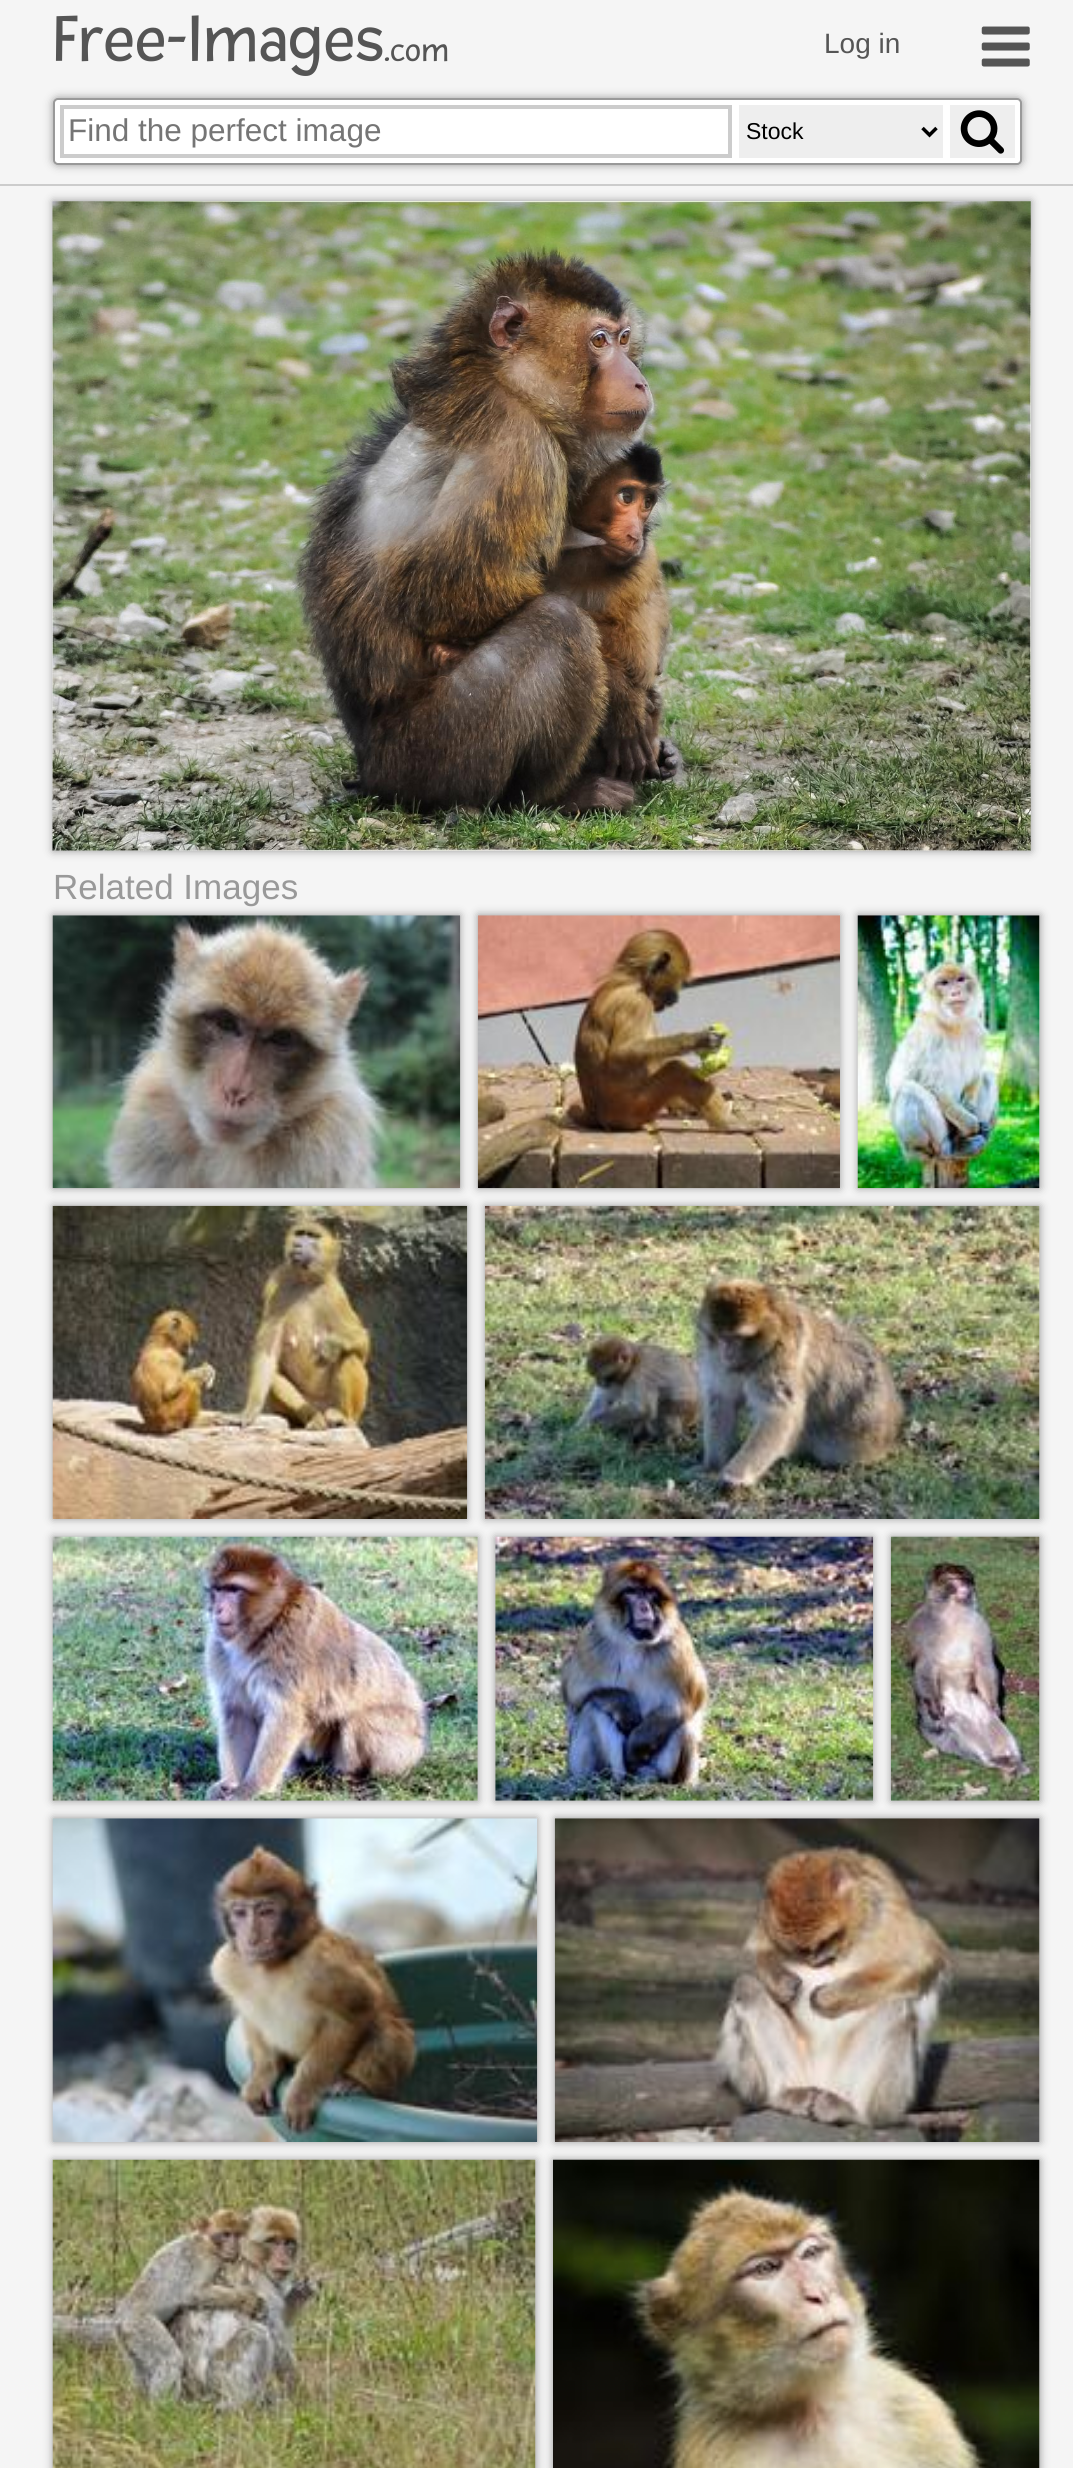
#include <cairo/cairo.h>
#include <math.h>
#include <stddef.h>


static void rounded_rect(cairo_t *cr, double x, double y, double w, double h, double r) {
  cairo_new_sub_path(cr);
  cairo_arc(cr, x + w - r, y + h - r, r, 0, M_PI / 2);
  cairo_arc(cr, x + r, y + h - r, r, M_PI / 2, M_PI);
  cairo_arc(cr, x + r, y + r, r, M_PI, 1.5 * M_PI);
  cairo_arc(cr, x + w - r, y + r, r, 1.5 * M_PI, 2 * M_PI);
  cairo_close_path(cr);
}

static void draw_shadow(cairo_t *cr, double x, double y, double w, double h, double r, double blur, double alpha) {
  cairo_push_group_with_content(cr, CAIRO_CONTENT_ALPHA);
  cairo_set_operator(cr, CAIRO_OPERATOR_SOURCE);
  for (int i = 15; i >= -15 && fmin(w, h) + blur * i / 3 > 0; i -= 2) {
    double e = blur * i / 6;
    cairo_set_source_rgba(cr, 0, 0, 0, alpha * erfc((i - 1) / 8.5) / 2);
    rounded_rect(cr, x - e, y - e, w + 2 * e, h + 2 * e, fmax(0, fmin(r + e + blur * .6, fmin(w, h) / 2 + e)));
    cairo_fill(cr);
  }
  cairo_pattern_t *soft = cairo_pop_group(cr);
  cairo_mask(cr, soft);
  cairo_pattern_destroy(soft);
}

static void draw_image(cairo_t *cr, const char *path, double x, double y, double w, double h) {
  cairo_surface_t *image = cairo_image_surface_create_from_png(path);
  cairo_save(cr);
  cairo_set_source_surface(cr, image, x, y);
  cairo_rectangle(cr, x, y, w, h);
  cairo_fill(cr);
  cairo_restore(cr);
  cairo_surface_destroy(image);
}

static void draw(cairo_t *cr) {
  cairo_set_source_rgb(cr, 245 / 255.0, 245 / 255.0, 245 / 255.0);
  cairo_paint(cr);
  cairo_set_source_rgb(cr, 204 / 255.0, 204 / 255.0, 204 / 255.0);
  cairo_rectangle(cr, 0, 184, 1073, 2);
  cairo_fill(cr);
  cairo_set_source_rgb(cr, 153 / 255.0, 153 / 255.0, 153 / 255.0);
  draw_shadow(cr, 53, 98, 969, 67, 5, 4.5, 1);
  cairo_set_source_rgb(cr, 1, 1, 1);
  rounded_rect(cr, 54, 99, 967, 65, 4);
  cairo_fill_preserve(cr);
  cairo_set_source_rgb(cr, 153 / 255.0, 153 / 255.0, 153 / 255.0);
  cairo_stroke(cr);
  cairo_rectangle(cr, 62, 107, 668, 49);
  cairo_set_source_rgb(cr, 204 / 255.0, 204 / 255.0, 204 / 255.0);
  cairo_set_line_width(cr, 4);
  cairo_stroke(cr);
  cairo_set_source_rgb(cr, 238 / 255.0, 238 / 255.0, 238 / 255.0);
  cairo_rectangle(cr, 739, 105, 204, 53);
  cairo_fill(cr);
  cairo_new_path(cr);
  cairo_move_to(cr, 922.5, 128);
  cairo_line_to(cr, 929.5, 135);
  cairo_line_to(cr, 936.5, 128);
  cairo_set_source_rgb(cr, 0, 0, 0);
  cairo_set_line_width(cr, 3.5);
  cairo_stroke(cr);
  cairo_set_source_rgb(cr, 238 / 255.0, 238 / 255.0, 238 / 255.0);
  cairo_rectangle(cr, 950, 105, 65, 53);
  cairo_fill(cr);
  draw_image(cr, "images/1.png", 960, 110, 45, 44);
  draw_image(cr, "images/2.png", 981, 26, 49, 41);
  cairo_set_source_rgb(cr, 153 / 255.0, 153 / 255.0, 153 / 255.0);
  draw_shadow(cr, 53, 201, 978, 650, 0, 4.5, 1);
  draw_image(cr, "images/3.png", 52, 201, 979, 650);
  draw_shadow(cr, 53, 915, 407, 273, 0, 4.5, 1);
  draw_image(cr, "images/4.png", 52, 915, 409, 274);
  draw_shadow(cr, 478, 915, 362, 273, 0, 4.5, 1);
  draw_image(cr, "images/5.png", 477, 915, 363, 274);
  draw_shadow(cr, 858, 915, 182, 273, 0, 4.5, 1);
  draw_image(cr, "images/6.png", 857, 915, 183, 274);
  draw_shadow(cr, 53, 1206, 414, 313, 0, 4.5, 1);
  draw_image(cr, "images/7.png", 52, 1205, 416, 314);
  draw_shadow(cr, 485, 1206, 555, 313, 0, 4.5, 1);
  draw_image(cr, "images/8.png", 484, 1205, 556, 314);
  draw_shadow(cr, 53, 1537, 425, 264, 0, 4.5, 1);
  draw_image(cr, "images/9.png", 52, 1536, 426, 265);
  draw_shadow(cr, 495, 1537, 378, 264, 0, 4.5, 1);
  draw_image(cr, "images/10.png", 495, 1536, 379, 265);
  draw_shadow(cr, 891, 1537, 149, 264, 0, 4.5, 1);
  draw_image(cr, "images/11.png", 890, 1536, 150, 265);
  draw_shadow(cr, 53, 1818, 484, 324, 0, 4.5, 1);
  draw_image(cr, "images/12.png", 52, 1818, 486, 324);
  draw_shadow(cr, 555, 1818, 485, 324, 0, 4.5, 1);
  draw_image(cr, "images/13.png", 554, 1818, 486, 324);
  draw_shadow(cr, 53, 2160, 483, 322, 0, 4.5, 1);
  draw_image(cr, "images/14.png", 52, 2159, 484, 309);
  draw_shadow(cr, 553, 2160, 487, 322, 0, 4.5, 1);
  draw_image(cr, "images/15.png", 553, 2159, 487, 309);
  cairo_select_font_face(cr, "Fresca", CAIRO_FONT_SLANT_NORMAL, CAIRO_FONT_WEIGHT_NORMAL);
  cairo_set_font_size(cr, 70);
  cairo_set_source_rgb(cr, 85 / 255.0, 85 / 255.0, 85 / 255.0);
  cairo_move_to(cr, 53, 61);
  cairo_show_text(cr, "Free-Images");
  cairo_set_font_size(cr, 35);
  cairo_move_to(cr, 384, 61);
  cairo_show_text(cr, ".com");
  cairo_select_font_face(cr, "Liberation Sans", CAIRO_FONT_SLANT_NORMAL, CAIRO_FONT_WEIGHT_NORMAL);
  cairo_set_font_size(cr, 31.5);
  cairo_set_source_rgb(cr, 117 / 255.0, 117 / 255.0, 117 / 255.0);
  cairo_move_to(cr, 68, 141);
  cairo_show_text(cr, "Find the perfect image");
  cairo_set_font_size(cr, 23);
  cairo_set_source_rgb(cr, 0, 0, 0);
  cairo_move_to(cr, 746, 139);
  cairo_show_text(cr, "Stock");
  cairo_set_font_size(cr, 28);
  cairo_set_source_rgb(cr, 85 / 255.0, 85 / 255.0, 85 / 255.0);
  cairo_move_to(cr, 824, 53);
  cairo_show_text(cr, "Log in");
  cairo_set_font_size(cr, 35);
  cairo_set_source_rgb(cr, 153 / 255.0, 153 / 255.0, 153 / 255.0);
  cairo_move_to(cr, 53, 899);
  cairo_show_text(cr, "Related Images");
}

int main(void) {
  cairo_surface_t *surface = cairo_image_surface_create(CAIRO_FORMAT_RGB24, 1073, 2468);
  cairo_t *cr = cairo_create(surface);
  cairo_font_options_t *options = cairo_font_options_create();
  cairo_font_options_set_hint_metrics(options, CAIRO_HINT_METRICS_OFF);
  cairo_font_options_set_hint_style(options, CAIRO_HINT_STYLE_NONE);
  cairo_set_font_options(cr, options);
  cairo_set_miter_limit(cr, 4);
  draw(cr);
  cairo_surface_write_to_png(surface, "out.png");
  cairo_font_options_destroy(options);
  cairo_destroy(cr);
  cairo_surface_destroy(surface);
  return 0;
}
